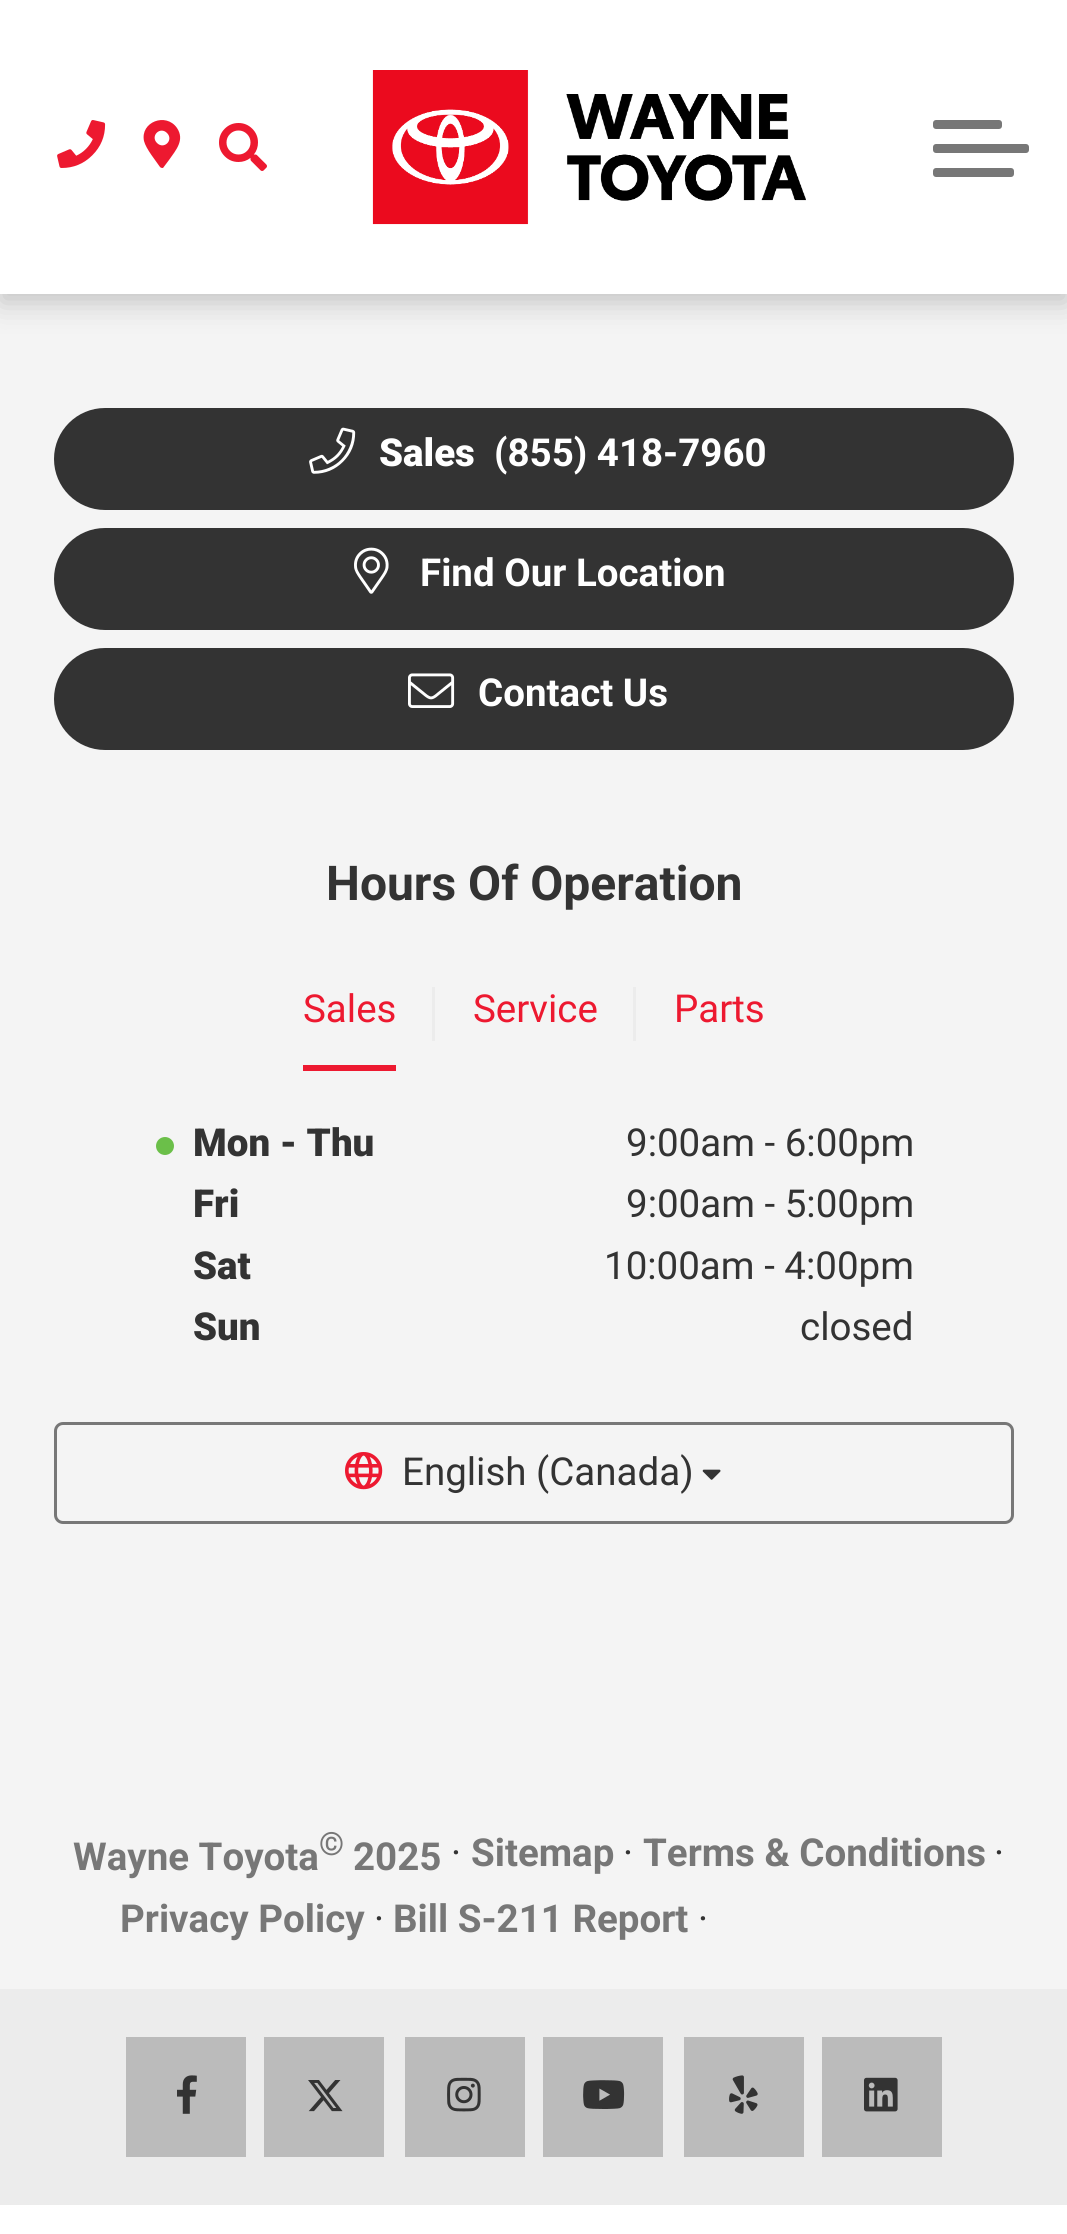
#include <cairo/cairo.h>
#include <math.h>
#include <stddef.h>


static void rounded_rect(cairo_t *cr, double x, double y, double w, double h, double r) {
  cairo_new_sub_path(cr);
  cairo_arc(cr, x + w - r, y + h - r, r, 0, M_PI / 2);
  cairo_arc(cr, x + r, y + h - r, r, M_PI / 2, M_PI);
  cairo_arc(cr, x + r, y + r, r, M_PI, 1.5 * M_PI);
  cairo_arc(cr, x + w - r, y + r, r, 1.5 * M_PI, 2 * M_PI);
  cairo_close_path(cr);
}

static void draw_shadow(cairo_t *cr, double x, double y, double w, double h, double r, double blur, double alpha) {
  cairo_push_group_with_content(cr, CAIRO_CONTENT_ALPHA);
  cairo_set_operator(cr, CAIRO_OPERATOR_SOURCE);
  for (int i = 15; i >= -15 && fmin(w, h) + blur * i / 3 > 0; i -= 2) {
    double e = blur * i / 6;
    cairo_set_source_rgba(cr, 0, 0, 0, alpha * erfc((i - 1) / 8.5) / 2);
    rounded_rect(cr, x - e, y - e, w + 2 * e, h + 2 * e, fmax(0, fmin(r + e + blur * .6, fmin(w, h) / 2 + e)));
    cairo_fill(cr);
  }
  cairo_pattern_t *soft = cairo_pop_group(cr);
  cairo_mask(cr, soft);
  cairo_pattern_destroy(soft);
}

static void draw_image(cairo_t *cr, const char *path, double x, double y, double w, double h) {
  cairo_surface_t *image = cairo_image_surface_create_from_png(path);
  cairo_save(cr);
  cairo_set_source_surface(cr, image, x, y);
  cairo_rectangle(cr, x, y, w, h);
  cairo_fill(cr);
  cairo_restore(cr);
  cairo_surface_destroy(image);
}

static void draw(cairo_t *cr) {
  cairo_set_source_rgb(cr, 1, 1, 1);
  cairo_paint(cr);
  cairo_set_source_rgb(cr, 244 / 255.0, 244 / 255.0, 244 / 255.0);
  cairo_rectangle(cr, 0, 294, 1067, 1695);
  cairo_fill(cr);
  cairo_set_source_rgb(cr, 0, 0, 0);
  draw_shadow(cr, 0, 9, 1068, 294, 0, 14.5, 0.2);
  cairo_set_source_rgb(cr, 1, 1, 1);
  cairo_rectangle(cr, 0, 0, 1067, 294);
  cairo_fill(cr);
  draw_image(cr, "images/1.png", 57, 120, 49, 48);
  cairo_set_source_rgb(cr, 237 / 255.0, 25 / 255.0, 48 / 255.0);
  cairo_new_path(cr);
  cairo_move_to(cr, 160, 167);
  cairo_curve_to(cr, 156, 161, 146, 149, 144, 141);
  cairo_curve_to(cr, 140, 122, 166, 112, 177, 128);
  cairo_curve_to(cr, 185, 140, 176, 150, 169, 160);
  cairo_line_to(cr, 163, 168);
  cairo_curve_to(cr, 162, 168, 161, 168, 160, 167);
  cairo_close_path(cr);
  cairo_move_to(cr, 157, 143);
  cairo_curve_to(cr, 164, 150, 174, 140, 167, 133);
  cairo_curve_to(cr, 160, 126, 150, 136, 157, 143);
  cairo_close_path(cr);
  cairo_fill(cr);
  draw_image(cr, "images/2.png", 219, 123, 48, 48);
  draw_image(cr, "images/3.png", 372, 70, 434, 155);
  cairo_set_source_rgb(cr, 119 / 255.0, 119 / 255.0, 119 / 255.0);
  rounded_rect(cr, 933, 144, 96, 9, 3);
  cairo_fill(cr);
  rounded_rect(cr, 933, 120, 69, 9, 3);
  cairo_fill(cr);
  rounded_rect(cr, 933, 168, 81, 9, 3);
  cairo_fill(cr);
  cairo_set_source_rgb(cr, 51 / 255.0, 51 / 255.0, 51 / 255.0);
  rounded_rect(cr, 54, 408, 960, 102, 51);
  cairo_fill(cr);
  draw_image(cr, "images/4.png", 309, 427, 47, 47);
  rounded_rect(cr, 54, 528, 960, 102, 51);
  cairo_fill(cr);
  draw_image(cr, "images/5.png", 354, 547, 35, 47);
  rounded_rect(cr, 54, 648, 960, 102, 51);
  cairo_fill(cr);
  draw_image(cr, "images/6.png", 408, 673, 47, 35);
  cairo_set_source_rgb(cr, 237 / 255.0, 25 / 255.0, 48 / 255.0);
  cairo_rectangle(cr, 303, 1065, 93, 6);
  cairo_fill(cr);
  cairo_set_source_rgb(cr, 236 / 255.0, 236 / 255.0, 236 / 255.0);
  cairo_rectangle(cr, 432, 987, 3, 54);
  cairo_fill(cr);
  cairo_rectangle(cr, 633, 987, 3, 54);
  cairo_fill(cr);
  cairo_set_source_rgb(cr, 107 / 255.0, 191 / 255.0, 73 / 255.0);
  cairo_arc(cr, 165, 1146, 9, 0, 2 * M_PI);
  cairo_fill(cr);
  rounded_rect(cr, 55.5, 1423.5, 957, 99, 7.5);
  cairo_set_source_rgb(cr, 119 / 255.0, 119 / 255.0, 119 / 255.0);
  cairo_set_line_width(cr, 3);
  cairo_stroke(cr);
  draw_image(cr, "images/7.png", 345, 1452, 38, 38);
  draw_image(cr, "images/8.png", 702, 1469, 19, 11);
  cairo_set_source_rgb(cr, 236 / 255.0, 236 / 255.0, 236 / 255.0);
  cairo_rectangle(cr, 0, 1989, 1067, 216);
  cairo_fill(cr);
  cairo_set_source_rgb(cr, 187 / 255.0, 187 / 255.0, 187 / 255.0);
  cairo_rectangle(cr, 126, 2037, 120, 120);
  cairo_fill(cr);
  draw_image(cr, "images/9.png", 177, 2075, 20, 39);
  cairo_rectangle(cr, 264, 2037, 120, 120);
  cairo_fill(cr);
  draw_image(cr, "images/10.png", 308, 2080, 35, 32);
  cairo_rectangle(cr, 405, 2037, 120, 120);
  cairo_fill(cr);
  draw_image(cr, "images/11.png", 447, 2077, 34, 35);
  cairo_rectangle(cr, 543, 2037, 120, 120);
  cairo_fill(cr);
  draw_image(cr, "images/12.png", 583, 2080, 42, 29);
  cairo_rectangle(cr, 684, 2037, 120, 120);
  cairo_fill(cr);
  draw_image(cr, "images/13.png", 729, 2075, 29, 39);
  cairo_rectangle(cr, 822, 2037, 120, 120);
  cairo_fill(cr);
  draw_image(cr, "images/14.png", 864, 2077, 34, 35);
  cairo_select_font_face(cr, "Roboto Black", CAIRO_FONT_SLANT_NORMAL, CAIRO_FONT_WEIGHT_NORMAL);
  cairo_set_font_size(cr, 38.5);
  cairo_set_source_rgb(cr, 1, 1, 1);
  cairo_move_to(cr, 379, 466);
  cairo_show_text(cr, "Sales");
  cairo_select_font_face(cr, "Roboto", CAIRO_FONT_SLANT_NORMAL, CAIRO_FONT_WEIGHT_BOLD);
  cairo_move_to(cr, 494, 466);
  cairo_show_text(cr, "(855) 418-7960");
  cairo_move_to(cr, 420, 586);
  cairo_show_text(cr, "Find Our Location");
  cairo_move_to(cr, 478, 706);
  cairo_show_text(cr, "Contact Us");
  cairo_set_font_size(cr, 48);
  cairo_set_source_rgb(cr, 51 / 255.0, 51 / 255.0, 51 / 255.0);
  cairo_move_to(cr, 326, 900);
  cairo_show_text(cr, "Hours Of Operation");
  cairo_select_font_face(cr, "Roboto", CAIRO_FONT_SLANT_NORMAL, CAIRO_FONT_WEIGHT_NORMAL);
  cairo_set_font_size(cr, 38.5);
  cairo_set_source_rgb(cr, 237 / 255.0, 25 / 255.0, 48 / 255.0);
  cairo_move_to(cr, 303, 1022);
  cairo_show_text(cr, "Sales");
  cairo_move_to(cr, 473, 1022);
  cairo_show_text(cr, "Service");
  cairo_move_to(cr, 674, 1022);
  cairo_show_text(cr, "Parts");
  cairo_select_font_face(cr, "Roboto Black", CAIRO_FONT_SLANT_NORMAL, CAIRO_FONT_WEIGHT_NORMAL);
  cairo_set_source_rgb(cr, 51 / 255.0, 51 / 255.0, 51 / 255.0);
  cairo_move_to(cr, 193, 1156);
  cairo_show_text(cr, "Mon - Thu");
  cairo_select_font_face(cr, "Roboto", CAIRO_FONT_SLANT_NORMAL, CAIRO_FONT_WEIGHT_NORMAL);
  cairo_move_to(cr, 626, 1156);
  cairo_show_text(cr, "9:00am - 6:00pm");
  cairo_select_font_face(cr, "Roboto Black", CAIRO_FONT_SLANT_NORMAL, CAIRO_FONT_WEIGHT_NORMAL);
  cairo_move_to(cr, 193, 1217);
  cairo_show_text(cr, "Fri");
  cairo_select_font_face(cr, "Roboto", CAIRO_FONT_SLANT_NORMAL, CAIRO_FONT_WEIGHT_NORMAL);
  cairo_move_to(cr, 626, 1217);
  cairo_show_text(cr, "9:00am - 5:00pm");
  cairo_select_font_face(cr, "Roboto Black", CAIRO_FONT_SLANT_NORMAL, CAIRO_FONT_WEIGHT_NORMAL);
  cairo_move_to(cr, 193, 1279);
  cairo_show_text(cr, "Sat");
  cairo_select_font_face(cr, "Roboto", CAIRO_FONT_SLANT_NORMAL, CAIRO_FONT_WEIGHT_NORMAL);
  cairo_move_to(cr, 604, 1279);
  cairo_show_text(cr, "10:00am - 4:00pm");
  cairo_select_font_face(cr, "Roboto Black", CAIRO_FONT_SLANT_NORMAL, CAIRO_FONT_WEIGHT_NORMAL);
  cairo_move_to(cr, 193, 1340);
  cairo_show_text(cr, "Sun");
  cairo_select_font_face(cr, "Roboto", CAIRO_FONT_SLANT_NORMAL, CAIRO_FONT_WEIGHT_NORMAL);
  cairo_move_to(cr, 800, 1340);
  cairo_show_text(cr, "closed");
  cairo_move_to(cr, 402, 1485);
  cairo_show_text(cr, "English (Canada)");
  cairo_select_font_face(cr, "Roboto", CAIRO_FONT_SLANT_NORMAL, CAIRO_FONT_WEIGHT_BOLD);
  cairo_set_source_rgb(cr, 119 / 255.0, 119 / 255.0, 119 / 255.0);
  cairo_move_to(cr, 73, 1870);
  cairo_show_text(cr, "Wayne Toyota");
  cairo_set_font_size(cr, 32);
  cairo_move_to(cr, 319, 1855);
  cairo_show_text(cr, "©");
  cairo_set_font_size(cr, 38.5);
  cairo_move_to(cr, 353, 1870);
  cairo_show_text(cr, "2025");
  cairo_select_font_face(cr, "Roboto", CAIRO_FONT_SLANT_NORMAL, CAIRO_FONT_WEIGHT_NORMAL);
  cairo_set_source_rgb(cr, 51 / 255.0, 51 / 255.0, 51 / 255.0);
  cairo_move_to(cr, 451, 1866);
  cairo_show_text(cr, "·");
  cairo_select_font_face(cr, "Roboto", CAIRO_FONT_SLANT_NORMAL, CAIRO_FONT_WEIGHT_BOLD);
  cairo_set_source_rgb(cr, 119 / 255.0, 119 / 255.0, 119 / 255.0);
  cairo_move_to(cr, 471, 1866);
  cairo_show_text(cr, "Sitemap");
  cairo_select_font_face(cr, "Roboto", CAIRO_FONT_SLANT_NORMAL, CAIRO_FONT_WEIGHT_NORMAL);
  cairo_set_source_rgb(cr, 51 / 255.0, 51 / 255.0, 51 / 255.0);
  cairo_move_to(cr, 623, 1866);
  cairo_show_text(cr, "·");
  cairo_select_font_face(cr, "Roboto", CAIRO_FONT_SLANT_NORMAL, CAIRO_FONT_WEIGHT_BOLD);
  cairo_set_source_rgb(cr, 119 / 255.0, 119 / 255.0, 119 / 255.0);
  cairo_move_to(cr, 643, 1866);
  cairo_show_text(cr, "Terms & Conditions");
  cairo_select_font_face(cr, "Roboto", CAIRO_FONT_SLANT_NORMAL, CAIRO_FONT_WEIGHT_NORMAL);
  cairo_set_source_rgb(cr, 51 / 255.0, 51 / 255.0, 51 / 255.0);
  cairo_move_to(cr, 994, 1866);
  cairo_show_text(cr, "·");
  cairo_select_font_face(cr, "Roboto", CAIRO_FONT_SLANT_NORMAL, CAIRO_FONT_WEIGHT_BOLD);
  cairo_set_source_rgb(cr, 119 / 255.0, 119 / 255.0, 119 / 255.0);
  cairo_move_to(cr, 120, 1932);
  cairo_show_text(cr, "Privacy Policy");
  cairo_select_font_face(cr, "Roboto", CAIRO_FONT_SLANT_NORMAL, CAIRO_FONT_WEIGHT_NORMAL);
  cairo_set_source_rgb(cr, 51 / 255.0, 51 / 255.0, 51 / 255.0);
  cairo_move_to(cr, 374, 1932);
  cairo_show_text(cr, "·");
  cairo_select_font_face(cr, "Roboto", CAIRO_FONT_SLANT_NORMAL, CAIRO_FONT_WEIGHT_BOLD);
  cairo_set_source_rgb(cr, 119 / 255.0, 119 / 255.0, 119 / 255.0);
  cairo_move_to(cr, 393, 1932);
  cairo_show_text(cr, "Bill S-211 Report");
  cairo_select_font_face(cr, "Roboto", CAIRO_FONT_SLANT_NORMAL, CAIRO_FONT_WEIGHT_NORMAL);
  cairo_set_source_rgb(cr, 51 / 255.0, 51 / 255.0, 51 / 255.0);
  cairo_move_to(cr, 698, 1932);
  cairo_show_text(cr, "·");
}

int main(void) {
  cairo_surface_t *surface = cairo_image_surface_create(CAIRO_FORMAT_RGB24, 1067, 2234);
  cairo_t *cr = cairo_create(surface);
  cairo_font_options_t *options = cairo_font_options_create();
  cairo_font_options_set_hint_metrics(options, CAIRO_HINT_METRICS_OFF);
  cairo_font_options_set_hint_style(options, CAIRO_HINT_STYLE_NONE);
  cairo_set_font_options(cr, options);
  cairo_set_miter_limit(cr, 4);
  draw(cr);
  cairo_surface_write_to_png(surface, "out.png");
  cairo_font_options_destroy(options);
  cairo_destroy(cr);
  cairo_surface_destroy(surface);
  return 0;
}
